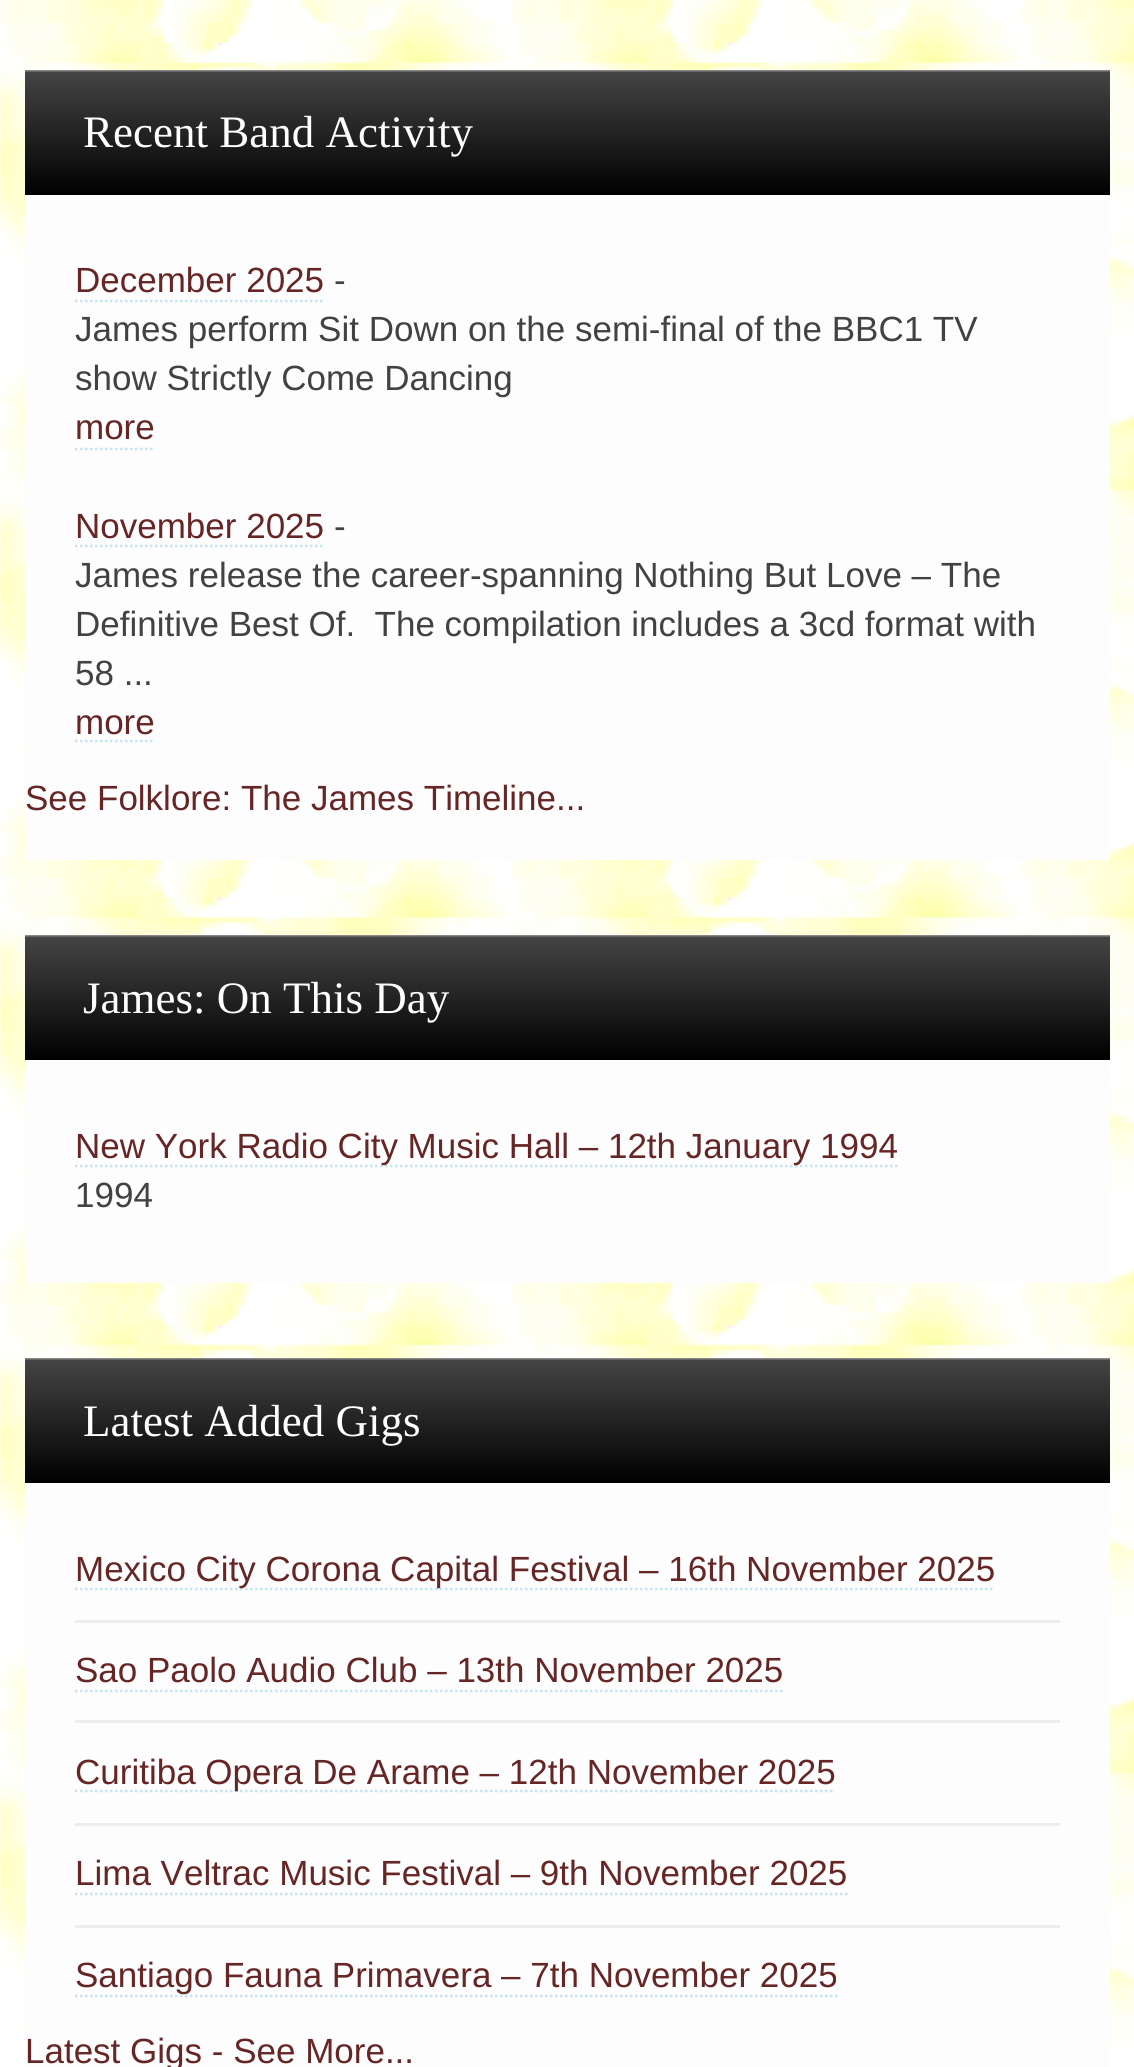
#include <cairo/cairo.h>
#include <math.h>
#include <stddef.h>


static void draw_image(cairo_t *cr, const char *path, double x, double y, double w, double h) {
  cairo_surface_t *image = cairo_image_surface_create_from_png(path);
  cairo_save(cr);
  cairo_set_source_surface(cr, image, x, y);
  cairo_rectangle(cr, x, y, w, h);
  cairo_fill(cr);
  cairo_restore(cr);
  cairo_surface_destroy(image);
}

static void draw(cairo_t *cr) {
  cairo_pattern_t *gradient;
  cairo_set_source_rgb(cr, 1, 1, 1);
  cairo_paint(cr);
  draw_image(cr, "images/1.png", 0, 0, 1134, 2067);
  cairo_set_source_rgb(cr, 253 / 255.0, 253 / 255.0, 253 / 255.0);
  cairo_rectangle(cr, 25, 195, 1085, 665);
  cairo_fill(cr);
  gradient = cairo_pattern_create_linear(568, 70, 568, 195);
  cairo_pattern_add_color_stop_rgba(gradient, 0, 153 / 255.0, 153 / 255.0, 153 / 255.0, 1);
  cairo_pattern_add_color_stop_rgba(gradient, 0.02, 68 / 255.0, 68 / 255.0, 68 / 255.0, 1);
  cairo_pattern_add_color_stop_rgba(gradient, 1, 0, 0, 0, 1);
  cairo_set_source(cr, gradient);
  cairo_pattern_destroy(gradient);
  cairo_rectangle(cr, 25, 70, 1085, 125);
  cairo_fill(cr);
  cairo_new_path(cr);
  cairo_move_to(cr, 75, 301);
  cairo_line_to(cr, 325, 301);
  cairo_set_source_rgb(cr, 197 / 255.0, 229 / 255.0, 244 / 255.0);
  cairo_set_line_width(cr, 2.5);
  cairo_set_dash(cr, (double[]){2.5, 2.5}, 2, 0);
  cairo_stroke(cr);
  cairo_new_path(cr);
  cairo_move_to(cr, 75, 449);
  cairo_line_to(cr, 155, 449);
  cairo_stroke(cr);
  cairo_new_path(cr);
  cairo_move_to(cr, 75, 546);
  cairo_line_to(cr, 325, 546);
  cairo_stroke(cr);
  cairo_new_path(cr);
  cairo_move_to(cr, 75, 741);
  cairo_line_to(cr, 155, 741);
  cairo_stroke(cr);
  cairo_set_source_rgb(cr, 253 / 255.0, 253 / 255.0, 253 / 255.0);
  cairo_rectangle(cr, 25, 1060, 1085, 223);
  cairo_fill(cr);
  gradient = cairo_pattern_create_linear(568, 935, 568, 1060);
  cairo_pattern_add_color_stop_rgba(gradient, 0, 153 / 255.0, 153 / 255.0, 153 / 255.0, 1);
  cairo_pattern_add_color_stop_rgba(gradient, 0.02, 68 / 255.0, 68 / 255.0, 68 / 255.0, 1);
  cairo_pattern_add_color_stop_rgba(gradient, 1, 0, 0, 0, 1);
  cairo_set_source(cr, gradient);
  cairo_pattern_destroy(gradient);
  cairo_rectangle(cr, 25, 935, 1085, 125);
  cairo_fill(cr);
  cairo_new_path(cr);
  cairo_move_to(cr, 75, 1166);
  cairo_line_to(cr, 897.5, 1166);
  cairo_set_source_rgb(cr, 197 / 255.0, 229 / 255.0, 244 / 255.0);
  cairo_stroke(cr);
  cairo_set_source_rgb(cr, 253 / 255.0, 253 / 255.0, 253 / 255.0);
  cairo_rectangle(cr, 25, 1483, 1085, 584);
  cairo_fill(cr);
  gradient = cairo_pattern_create_linear(568, 1358, 568, 1483);
  cairo_pattern_add_color_stop_rgba(gradient, 0, 153 / 255.0, 153 / 255.0, 153 / 255.0, 1);
  cairo_pattern_add_color_stop_rgba(gradient, 0.02, 68 / 255.0, 68 / 255.0, 68 / 255.0, 1);
  cairo_pattern_add_color_stop_rgba(gradient, 1, 0, 0, 0, 1);
  cairo_set_source(cr, gradient);
  cairo_pattern_destroy(gradient);
  cairo_rectangle(cr, 25, 1358, 1085, 125);
  cairo_fill(cr);
  cairo_set_source_rgb(cr, 237 / 255.0, 237 / 255.0, 237 / 255.0);
  cairo_rectangle(cr, 75, 1620, 985, 3);
  cairo_fill(cr);
  cairo_new_path(cr);
  cairo_move_to(cr, 75, 1589);
  cairo_line_to(cr, 995, 1589);
  cairo_set_source_rgb(cr, 197 / 255.0, 229 / 255.0, 244 / 255.0);
  cairo_stroke(cr);
  cairo_set_source_rgb(cr, 237 / 255.0, 237 / 255.0, 237 / 255.0);
  cairo_rectangle(cr, 75, 1720, 985, 3);
  cairo_fill(cr);
  cairo_new_path(cr);
  cairo_move_to(cr, 75, 1691);
  cairo_line_to(cr, 782.5, 1691);
  cairo_set_source_rgb(cr, 197 / 255.0, 229 / 255.0, 244 / 255.0);
  cairo_stroke(cr);
  cairo_set_source_rgb(cr, 237 / 255.0, 237 / 255.0, 237 / 255.0);
  cairo_rectangle(cr, 75, 1823, 985, 3);
  cairo_fill(cr);
  cairo_new_path(cr);
  cairo_move_to(cr, 75, 1791);
  cairo_line_to(cr, 835, 1791);
  cairo_set_source_rgb(cr, 197 / 255.0, 229 / 255.0, 244 / 255.0);
  cairo_stroke(cr);
  cairo_set_source_rgb(cr, 237 / 255.0, 237 / 255.0, 237 / 255.0);
  cairo_rectangle(cr, 75, 1925, 985, 3);
  cairo_fill(cr);
  cairo_new_path(cr);
  cairo_move_to(cr, 75, 1894);
  cairo_line_to(cr, 847.5, 1894);
  cairo_set_source_rgb(cr, 197 / 255.0, 229 / 255.0, 244 / 255.0);
  cairo_stroke(cr);
  cairo_new_path(cr);
  cairo_move_to(cr, 75, 1996);
  cairo_line_to(cr, 837.5, 1996);
  cairo_stroke(cr);
  cairo_select_font_face(cr, "Liberation Serif", CAIRO_FONT_SLANT_NORMAL, CAIRO_FONT_WEIGHT_NORMAL);
  cairo_set_font_size(cr, 45);
  cairo_set_source_rgb(cr, 1, 1, 1);
  cairo_move_to(cr, 83, 147);
  cairo_show_text(cr, "Recent Band Activity");
  cairo_select_font_face(cr, "Liberation Sans", CAIRO_FONT_SLANT_NORMAL, CAIRO_FONT_WEIGHT_NORMAL);
  cairo_set_font_size(cr, 35);
  cairo_set_source_rgb(cr, 102 / 255.0, 38 / 255.0, 38 / 255.0);
  cairo_move_to(cr, 75, 292);
  cairo_show_text(cr, "December 2025");
  cairo_set_source_rgb(cr, 66 / 255.0, 66 / 255.0, 66 / 255.0);
  cairo_move_to(cr, 334, 292);
  cairo_show_text(cr, "-");
  cairo_move_to(cr, 75, 341);
  cairo_show_text(cr, "James perform Sit Down on the semi-final of the BBC1 TV");
  cairo_move_to(cr, 75, 390);
  cairo_show_text(cr, "show Strictly Come Dancing");
  cairo_set_source_rgb(cr, 102 / 255.0, 38 / 255.0, 38 / 255.0);
  cairo_move_to(cr, 75, 439);
  cairo_show_text(cr, "more");
  cairo_move_to(cr, 75, 538);
  cairo_show_text(cr, "November 2025");
  cairo_set_source_rgb(cr, 66 / 255.0, 66 / 255.0, 66 / 255.0);
  cairo_move_to(cr, 334, 538);
  cairo_show_text(cr, "-");
  cairo_move_to(cr, 75, 587);
  cairo_show_text(cr, "James release the career-spanning Nothing But Love – The");
  cairo_move_to(cr, 75, 636);
  cairo_show_text(cr, "Definitive Best Of.  The compilation includes a 3cd format with");
  cairo_move_to(cr, 75, 685);
  cairo_show_text(cr, "58 ...");
  cairo_set_source_rgb(cr, 102 / 255.0, 38 / 255.0, 38 / 255.0);
  cairo_move_to(cr, 75, 734);
  cairo_show_text(cr, "more");
  cairo_move_to(cr, 25, 810);
  cairo_show_text(cr, "See Folklore: The James Timeline...");
  cairo_select_font_face(cr, "Liberation Serif", CAIRO_FONT_SLANT_NORMAL, CAIRO_FONT_WEIGHT_NORMAL);
  cairo_set_font_size(cr, 45);
  cairo_set_source_rgb(cr, 1, 1, 1);
  cairo_move_to(cr, 83, 1013);
  cairo_show_text(cr, "James: On This Day");
  cairo_select_font_face(cr, "Liberation Sans", CAIRO_FONT_SLANT_NORMAL, CAIRO_FONT_WEIGHT_NORMAL);
  cairo_set_font_size(cr, 35);
  cairo_set_source_rgb(cr, 102 / 255.0, 38 / 255.0, 38 / 255.0);
  cairo_move_to(cr, 75, 1158);
  cairo_show_text(cr, "New York Radio City Music Hall – 12th January 1994");
  cairo_set_source_rgb(cr, 66 / 255.0, 66 / 255.0, 66 / 255.0);
  cairo_move_to(cr, 75, 1207);
  cairo_show_text(cr, "1994");
  cairo_select_font_face(cr, "Liberation Serif", CAIRO_FONT_SLANT_NORMAL, CAIRO_FONT_WEIGHT_NORMAL);
  cairo_set_font_size(cr, 45);
  cairo_set_source_rgb(cr, 1, 1, 1);
  cairo_move_to(cr, 83, 1436);
  cairo_show_text(cr, "Latest Added Gigs");
  cairo_select_font_face(cr, "Liberation Sans", CAIRO_FONT_SLANT_NORMAL, CAIRO_FONT_WEIGHT_NORMAL);
  cairo_set_font_size(cr, 35);
  cairo_set_source_rgb(cr, 102 / 255.0, 38 / 255.0, 38 / 255.0);
  cairo_move_to(cr, 75, 1581);
  cairo_show_text(cr, "Mexico City Corona Capital Festival – 16th November 2025");
  cairo_move_to(cr, 75, 1682);
  cairo_show_text(cr, "Sao Paolo Audio Club – 13th November 2025");
  cairo_move_to(cr, 75, 1784);
  cairo_show_text(cr, "Curitiba Opera De Arame – 12th November 2025");
  cairo_move_to(cr, 75, 1885);
  cairo_show_text(cr, "Lima Veltrac Music Festival – 9th November 2025");
  cairo_move_to(cr, 75, 1987);
  cairo_show_text(cr, "Santiago Fauna Primavera – 7th November 2025");
  cairo_move_to(cr, 25, 2063);
  cairo_show_text(cr, "Latest Gigs - See More...");
}

int main(void) {
  cairo_surface_t *surface = cairo_image_surface_create(CAIRO_FORMAT_RGB24, 1134, 2067);
  cairo_t *cr = cairo_create(surface);
  cairo_font_options_t *options = cairo_font_options_create();
  cairo_font_options_set_hint_metrics(options, CAIRO_HINT_METRICS_OFF);
  cairo_font_options_set_hint_style(options, CAIRO_HINT_STYLE_NONE);
  cairo_set_font_options(cr, options);
  cairo_set_miter_limit(cr, 4);
  draw(cr);
  cairo_surface_write_to_png(surface, "out.png");
  cairo_font_options_destroy(options);
  cairo_destroy(cr);
  cairo_surface_destroy(surface);
  return 0;
}
